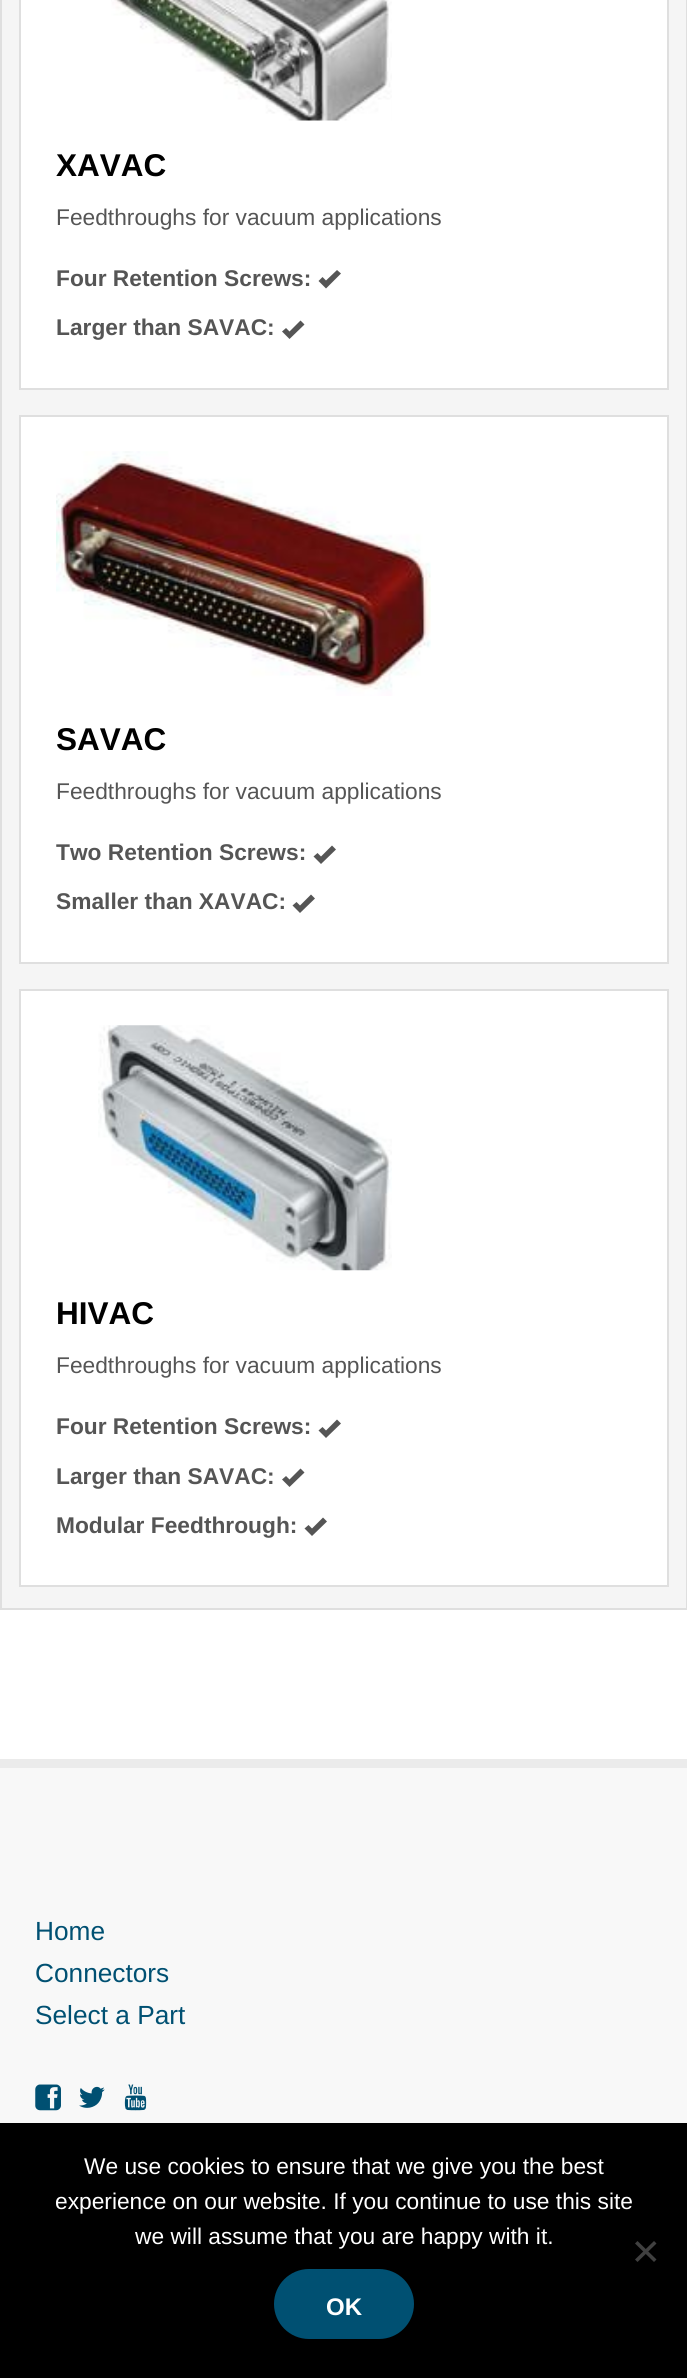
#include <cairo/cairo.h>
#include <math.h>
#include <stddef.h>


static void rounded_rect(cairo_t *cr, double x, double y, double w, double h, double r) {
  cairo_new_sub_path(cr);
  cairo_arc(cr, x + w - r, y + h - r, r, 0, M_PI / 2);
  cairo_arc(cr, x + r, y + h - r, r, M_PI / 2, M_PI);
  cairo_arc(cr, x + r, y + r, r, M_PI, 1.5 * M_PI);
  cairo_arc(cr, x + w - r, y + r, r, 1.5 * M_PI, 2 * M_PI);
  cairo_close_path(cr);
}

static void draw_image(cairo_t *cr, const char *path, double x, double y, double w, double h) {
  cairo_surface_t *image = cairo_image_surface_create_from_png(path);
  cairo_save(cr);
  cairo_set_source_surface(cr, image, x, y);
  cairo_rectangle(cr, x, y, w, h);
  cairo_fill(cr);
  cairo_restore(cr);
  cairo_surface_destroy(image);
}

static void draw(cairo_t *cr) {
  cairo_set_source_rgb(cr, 1, 1, 1);
  cairo_paint(cr);
  cairo_set_source_rgb(cr, 245 / 255.0, 245 / 255.0, 245 / 255.0);
  cairo_rectangle(cr, 1, -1, 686, 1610);
  cairo_fill_preserve(cr);
  cairo_set_source_rgb(cr, 223 / 255.0, 223 / 255.0, 223 / 255.0);
  cairo_stroke(cr);
  cairo_set_source_rgb(cr, 1, 1, 1);
  cairo_rectangle(cr, 20, -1, 648, 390);
  cairo_fill_preserve(cr);
  cairo_set_source_rgb(cr, 223 / 255.0, 223 / 255.0, 223 / 255.0);
  cairo_stroke(cr);
  draw_image(cr, "images/1.png", 111, 0, 281, 121);
  cairo_set_source_rgb(cr, 85 / 255.0, 85 / 255.0, 85 / 255.0);
  cairo_new_path(cr);
  cairo_move_to(cr, 318.5, 281);
  cairo_line_to(cr, 326, 288.5);
  cairo_line_to(cr, 341, 273.5);
  cairo_line_to(cr, 337, 270);
  cairo_line_to(cr, 326, 280.5);
  cairo_line_to(cr, 322.5, 277);
  cairo_close_path(cr);
  cairo_fill(cr);
  cairo_new_path(cr);
  cairo_move_to(cr, 282, 331.5);
  cairo_line_to(cr, 289.5, 339);
  cairo_line_to(cr, 304.5, 324.5);
  cairo_line_to(cr, 300.5, 320.5);
  cairo_line_to(cr, 289.5, 331.5);
  cairo_line_to(cr, 286, 328);
  cairo_close_path(cr);
  cairo_fill(cr);
  cairo_set_source_rgb(cr, 1, 1, 1);
  cairo_rectangle(cr, 20, 416, 648, 547);
  cairo_fill_preserve(cr);
  cairo_set_source_rgb(cr, 223 / 255.0, 223 / 255.0, 223 / 255.0);
  cairo_stroke(cr);
  draw_image(cr, "images/2.png", 56, 451, 375, 245);
  cairo_set_source_rgb(cr, 85 / 255.0, 85 / 255.0, 85 / 255.0);
  cairo_new_path(cr);
  cairo_move_to(cr, 313.5, 856.5);
  cairo_line_to(cr, 321, 864);
  cairo_line_to(cr, 336, 849.5);
  cairo_line_to(cr, 332, 845.5);
  cairo_line_to(cr, 321, 856.5);
  cairo_line_to(cr, 317.5, 853);
  cairo_close_path(cr);
  cairo_fill(cr);
  cairo_new_path(cr);
  cairo_move_to(cr, 292.5, 905.5);
  cairo_line_to(cr, 300, 913);
  cairo_line_to(cr, 315, 898.5);
  cairo_line_to(cr, 311, 894.5);
  cairo_line_to(cr, 300, 905.5);
  cairo_line_to(cr, 296.5, 902);
  cairo_close_path(cr);
  cairo_fill(cr);
  cairo_set_source_rgb(cr, 1, 1, 1);
  cairo_rectangle(cr, 20, 990, 648, 596);
  cairo_fill_preserve(cr);
  cairo_set_source_rgb(cr, 223 / 255.0, 223 / 255.0, 223 / 255.0);
  cairo_stroke(cr);
  draw_image(cr, "images/3.png", 98, 1025, 294, 246);
  cairo_set_source_rgb(cr, 85 / 255.0, 85 / 255.0, 85 / 255.0);
  cairo_new_path(cr);
  cairo_move_to(cr, 318.5, 1430.5);
  cairo_line_to(cr, 326, 1438);
  cairo_line_to(cr, 341, 1423.5);
  cairo_line_to(cr, 337, 1419.5);
  cairo_line_to(cr, 326, 1430.5);
  cairo_line_to(cr, 322.5, 1427);
  cairo_close_path(cr);
  cairo_fill(cr);
  cairo_new_path(cr);
  cairo_move_to(cr, 282, 1479.5);
  cairo_line_to(cr, 289.5, 1487);
  cairo_line_to(cr, 304.5, 1472.5);
  cairo_line_to(cr, 300.5, 1468.5);
  cairo_line_to(cr, 289.5, 1479.5);
  cairo_line_to(cr, 286, 1476);
  cairo_close_path(cr);
  cairo_fill(cr);
  cairo_new_path(cr);
  cairo_move_to(cr, 304.5, 1528.5);
  cairo_line_to(cr, 312, 1536);
  cairo_line_to(cr, 327, 1521.5);
  cairo_line_to(cr, 323, 1517.5);
  cairo_line_to(cr, 312, 1528.5);
  cairo_line_to(cr, 308.5, 1525);
  cairo_close_path(cr);
  cairo_fill(cr);
  cairo_set_source_rgb(cr, 248 / 255.0, 248 / 255.0, 248 / 255.0);
  cairo_rectangle(cr, 0, 1768, 687, 355);
  cairo_fill(cr);
  cairo_set_source_rgb(cr, 235 / 255.0, 235 / 255.0, 235 / 255.0);
  cairo_rectangle(cr, 0, 1759, 687, 9);
  cairo_fill(cr);
  draw_image(cr, "images/4.png", 35, 2084, 26, 27);
  draw_image(cr, "images/5.png", 79, 2086, 26, 22);
  draw_image(cr, "images/6.png", 124, 2084, 23, 27);
  cairo_set_source_rgb(cr, 0, 0, 0);
  cairo_rectangle(cr, 0, 2123, 687, 255);
  cairo_fill(cr);
  cairo_set_source_rgb(cr, 64 / 255.0, 64 / 255.0, 64 / 255.0);
  cairo_new_path(cr);
  cairo_move_to(cr, 654, 2241);
  cairo_line_to(cr, 656.5, 2243.5);
  cairo_line_to(cr, 637.5, 2262);
  cairo_line_to(cr, 635, 2259.5);
  cairo_close_path(cr);
  cairo_fill(cr);
  cairo_new_path(cr);
  cairo_move_to(cr, 635, 2243.5);
  cairo_line_to(cr, 637.5, 2241);
  cairo_line_to(cr, 656.5, 2259.5);
  cairo_line_to(cr, 654, 2262);
  cairo_close_path(cr);
  cairo_fill(cr);
  cairo_set_source_rgb(cr, 0, 80 / 255.0, 114 / 255.0);
  rounded_rect(cr, 272, 2267, 144, 74, 37);
  cairo_fill_preserve(cr);
  cairo_set_source_rgb(cr, 0, 0, 0);
  cairo_set_line_width(cr, 4);
  cairo_stroke(cr);
  cairo_select_font_face(cr, "Liberation Sans", CAIRO_FONT_SLANT_NORMAL, CAIRO_FONT_WEIGHT_BOLD);
  cairo_set_font_size(cr, 31.5);
  cairo_move_to(cr, 56, 176);
  cairo_show_text(cr, "XAVAC");
  cairo_select_font_face(cr, "Liberation Sans", CAIRO_FONT_SLANT_NORMAL, CAIRO_FONT_WEIGHT_NORMAL);
  cairo_set_font_size(cr, 22.75);
  cairo_set_source_rgb(cr, 85 / 255.0, 85 / 255.0, 85 / 255.0);
  cairo_move_to(cr, 56, 225);
  cairo_show_text(cr, "Feedthroughs for vacuum applications");
  cairo_select_font_face(cr, "Liberation Sans", CAIRO_FONT_SLANT_NORMAL, CAIRO_FONT_WEIGHT_BOLD);
  cairo_move_to(cr, 56, 286);
  cairo_show_text(cr, "Four Retention Screws:");
  cairo_move_to(cr, 56, 335);
  cairo_show_text(cr, "Larger than SAVAC:");
  cairo_set_font_size(cr, 31.5);
  cairo_set_source_rgb(cr, 0, 0, 0);
  cairo_move_to(cr, 56, 750);
  cairo_show_text(cr, "SAVAC");
  cairo_select_font_face(cr, "Liberation Sans", CAIRO_FONT_SLANT_NORMAL, CAIRO_FONT_WEIGHT_NORMAL);
  cairo_set_font_size(cr, 22.75);
  cairo_set_source_rgb(cr, 85 / 255.0, 85 / 255.0, 85 / 255.0);
  cairo_move_to(cr, 56, 799);
  cairo_show_text(cr, "Feedthroughs for vacuum applications");
  cairo_select_font_face(cr, "Liberation Sans", CAIRO_FONT_SLANT_NORMAL, CAIRO_FONT_WEIGHT_BOLD);
  cairo_move_to(cr, 56, 860);
  cairo_show_text(cr, "Two Retention Screws:");
  cairo_move_to(cr, 56, 909);
  cairo_show_text(cr, "Smaller than XAVAC:");
  cairo_set_font_size(cr, 31.5);
  cairo_set_source_rgb(cr, 0, 0, 0);
  cairo_move_to(cr, 56, 1324);
  cairo_show_text(cr, "HIVAC");
  cairo_select_font_face(cr, "Liberation Sans", CAIRO_FONT_SLANT_NORMAL, CAIRO_FONT_WEIGHT_NORMAL);
  cairo_set_font_size(cr, 22.75);
  cairo_set_source_rgb(cr, 85 / 255.0, 85 / 255.0, 85 / 255.0);
  cairo_move_to(cr, 56, 1373);
  cairo_show_text(cr, "Feedthroughs for vacuum applications");
  cairo_select_font_face(cr, "Liberation Sans", CAIRO_FONT_SLANT_NORMAL, CAIRO_FONT_WEIGHT_BOLD);
  cairo_move_to(cr, 56, 1434);
  cairo_show_text(cr, "Four Retention Screws:");
  cairo_move_to(cr, 56, 1484);
  cairo_show_text(cr, "Larger than SAVAC:");
  cairo_move_to(cr, 56, 1533);
  cairo_show_text(cr, "Modular Feedthrough:");
  cairo_select_font_face(cr, "Liberation Sans", CAIRO_FONT_SLANT_NORMAL, CAIRO_FONT_WEIGHT_NORMAL);
  cairo_set_font_size(cr, 26.25);
  cairo_set_source_rgb(cr, 0, 80 / 255.0, 114 / 255.0);
  cairo_move_to(cr, 35, 1940);
  cairo_show_text(cr, "Home");
  cairo_move_to(cr, 35, 1982);
  cairo_show_text(cr, "Connectors");
  cairo_move_to(cr, 35, 2024);
  cairo_show_text(cr, "Select a Part");
  cairo_set_font_size(cr, 22.75);
  cairo_set_source_rgb(cr, 1, 1, 1);
  cairo_move_to(cr, 84, 2174);
  cairo_show_text(cr, "We use cookies to ensure that we give you the best");
  cairo_move_to(cr, 55, 2209);
  cairo_show_text(cr, "experience on our website. If you continue to use this site");
  cairo_move_to(cr, 135, 2244);
  cairo_show_text(cr, "we will assume that you are happy with it.");
  cairo_select_font_face(cr, "Liberation Sans", CAIRO_FONT_SLANT_NORMAL, CAIRO_FONT_WEIGHT_BOLD);
  cairo_set_font_size(cr, 24);
  cairo_move_to(cr, 326, 2315);
  cairo_show_text(cr, "OK");
}

int main(void) {
  cairo_surface_t *surface = cairo_image_surface_create(CAIRO_FORMAT_RGB24, 687, 2378);
  cairo_t *cr = cairo_create(surface);
  cairo_font_options_t *options = cairo_font_options_create();
  cairo_font_options_set_hint_metrics(options, CAIRO_HINT_METRICS_OFF);
  cairo_font_options_set_hint_style(options, CAIRO_HINT_STYLE_NONE);
  cairo_set_font_options(cr, options);
  cairo_set_miter_limit(cr, 4);
  draw(cr);
  cairo_surface_write_to_png(surface, "out.png");
  cairo_font_options_destroy(options);
  cairo_destroy(cr);
  cairo_surface_destroy(surface);
  return 0;
}
